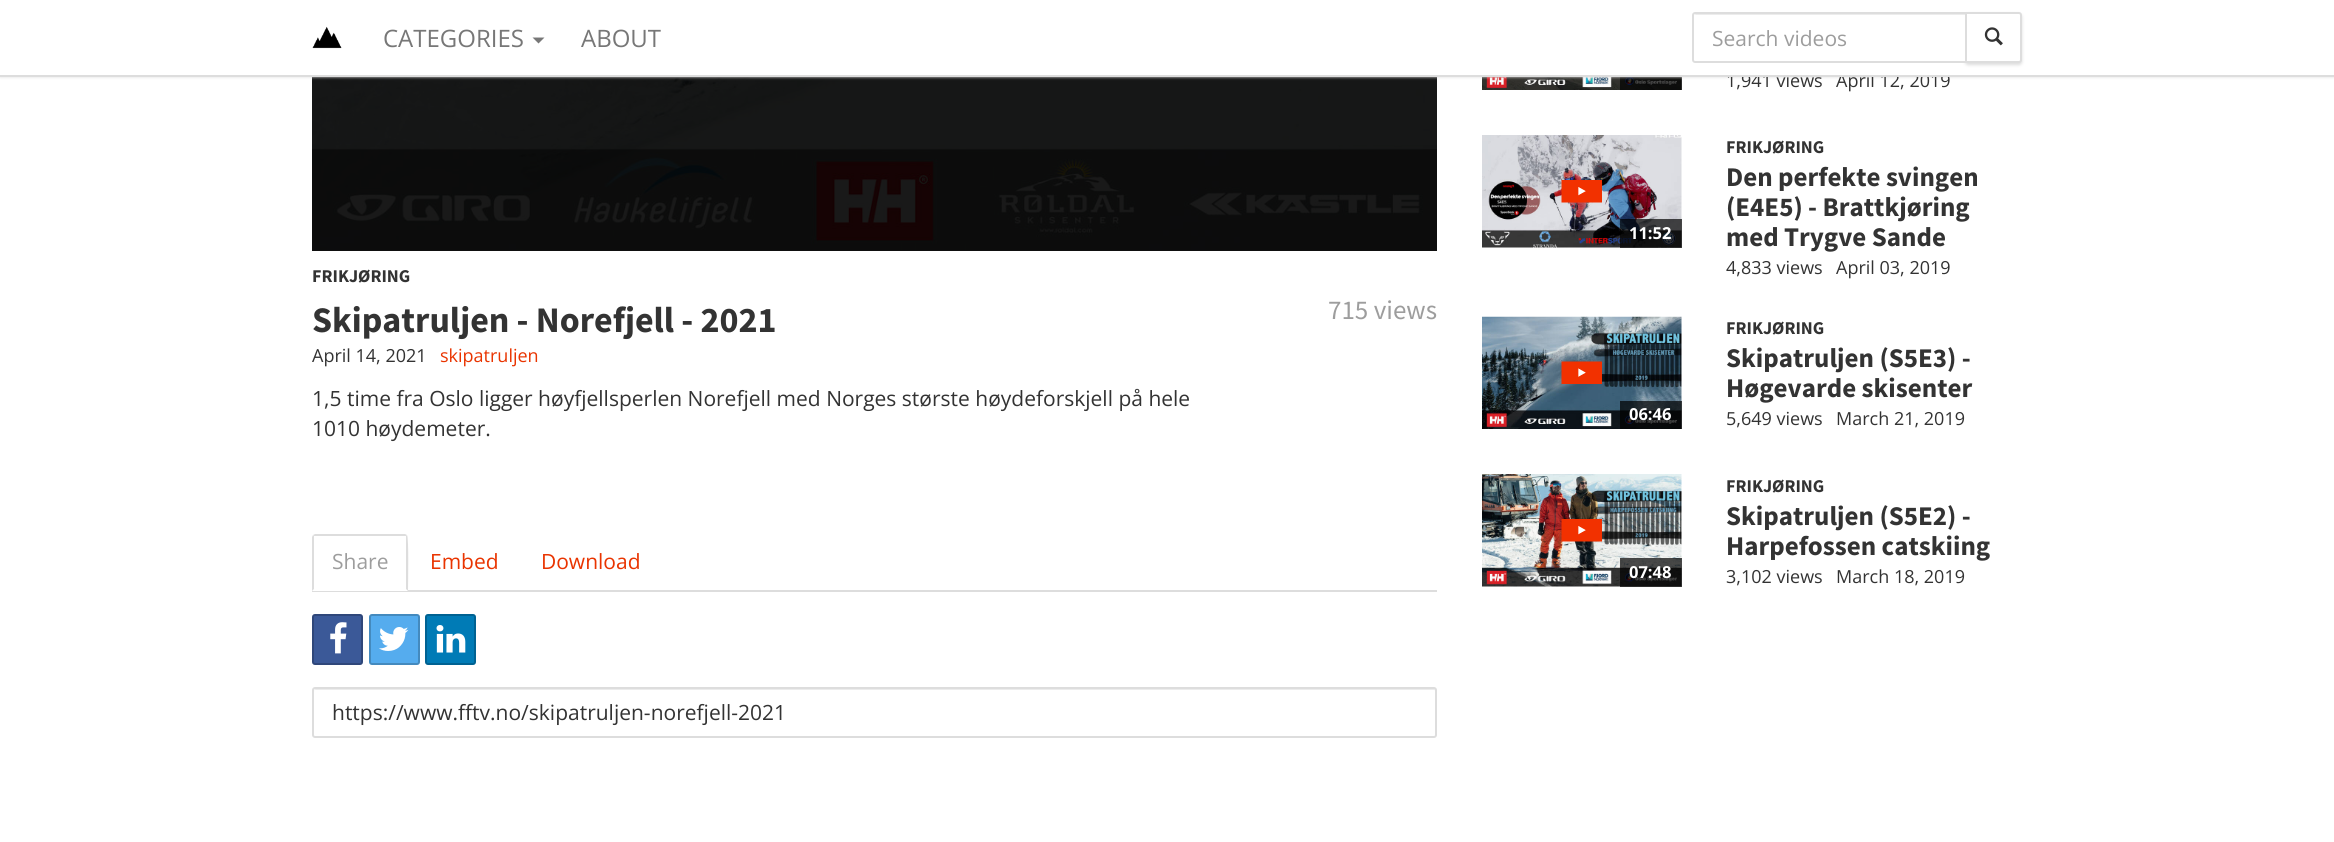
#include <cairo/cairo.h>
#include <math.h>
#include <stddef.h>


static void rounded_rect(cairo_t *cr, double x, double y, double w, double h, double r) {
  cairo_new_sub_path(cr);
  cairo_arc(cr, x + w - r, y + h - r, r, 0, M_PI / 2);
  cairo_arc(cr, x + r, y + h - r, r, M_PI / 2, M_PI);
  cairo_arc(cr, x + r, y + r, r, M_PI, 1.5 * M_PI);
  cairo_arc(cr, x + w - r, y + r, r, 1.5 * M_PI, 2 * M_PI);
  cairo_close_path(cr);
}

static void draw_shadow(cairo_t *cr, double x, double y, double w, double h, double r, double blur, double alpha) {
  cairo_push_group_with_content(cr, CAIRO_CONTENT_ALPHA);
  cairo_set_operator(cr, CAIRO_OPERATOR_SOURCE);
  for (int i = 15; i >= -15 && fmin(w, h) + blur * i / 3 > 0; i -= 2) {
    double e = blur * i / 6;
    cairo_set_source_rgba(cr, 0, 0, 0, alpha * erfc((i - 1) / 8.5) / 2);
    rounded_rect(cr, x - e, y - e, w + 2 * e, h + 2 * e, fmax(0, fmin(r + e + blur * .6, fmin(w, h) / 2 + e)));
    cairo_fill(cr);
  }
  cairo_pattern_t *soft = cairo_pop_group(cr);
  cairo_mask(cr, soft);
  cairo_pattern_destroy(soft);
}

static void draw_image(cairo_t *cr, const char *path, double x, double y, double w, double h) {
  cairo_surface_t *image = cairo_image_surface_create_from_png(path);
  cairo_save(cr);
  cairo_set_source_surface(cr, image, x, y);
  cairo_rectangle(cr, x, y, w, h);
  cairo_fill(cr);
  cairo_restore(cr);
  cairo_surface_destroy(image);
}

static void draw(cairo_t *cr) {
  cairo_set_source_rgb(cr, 1, 1, 1);
  cairo_paint(cr);
  draw_image(cr, "images/3.png", 312, 77, 1125, 174);
  draw_image(cr, "images/7.png", 1482, 77, 200, 13);
  cairo_set_source_rgba(cr, 0, 0, 0, 0.7);
  cairo_rectangle(cr, 1620, 77, 62, 13);
  cairo_fill(cr);
  cairo_set_source_rgb(cr, 221 / 255.0, 221 / 255.0, 221 / 255.0);
  draw_shadow(cr, 0, 0, 2334, 77, 0, 1.5, 1);
  cairo_set_source_rgb(cr, 221 / 255.0, 221 / 255.0, 221 / 255.0);
  cairo_rectangle(cr, 312, 590, 1125, 2);
  cairo_fill(cr);
  cairo_set_source_rgb(cr, 1, 1, 1);
  cairo_new_path(cr);
  cairo_move_to(cr, 315, 534);
  cairo_line_to(cr, 405, 534);
  cairo_curve_to(cr, 406.5, 534, 408, 535.5, 408, 537);
  cairo_line_to(cr, 408, 591);
  cairo_line_to(cr, 312, 591);
  cairo_line_to(cr, 312, 537);
  cairo_curve_to(cr, 312, 535.5, 313.5, 534, 315, 534);
  cairo_close_path(cr);
  cairo_fill(cr);
  cairo_set_source_rgb(cr, 221 / 255.0, 221 / 255.0, 221 / 255.0);
  cairo_new_path(cr);
  cairo_move_to(cr, 315, 534);
  cairo_line_to(cr, 313, 535);
  cairo_line_to(cr, 314, 536);
  cairo_line_to(cr, 406, 536);
  cairo_line_to(cr, 407, 535);
  cairo_line_to(cr, 405, 534);
  cairo_close_path(cr);
  cairo_fill(cr);
  cairo_new_path(cr);
  cairo_move_to(cr, 408, 591);
  cairo_curve_to(cr, 408, 585, 409, 537, 407, 535);
  cairo_line_to(cr, 406, 536);
  cairo_line_to(cr, 406, 589);
  cairo_close_path(cr);
  cairo_fill(cr);
  cairo_new_path(cr);
  cairo_move_to(cr, 312, 591);
  cairo_line_to(cr, 314, 589);
  cairo_line_to(cr, 314, 536);
  cairo_line_to(cr, 313, 535);
  cairo_line_to(cr, 312, 537);
  cairo_close_path(cr);
  cairo_fill(cr);
  cairo_set_source_rgb(cr, 59 / 255.0, 89 / 255.0, 152 / 255.0);
  rounded_rect(cr, 312, 614, 51, 51, 3);
  cairo_fill(cr);
  rounded_rect(cr, 313, 615, 49, 49, 2);
  cairo_set_source_rgba(cr, 0, 0, 0, 0.2);
  cairo_stroke(cr);
  draw_image(cr, "images/4.png", 330, 622, 17, 32);
  cairo_set_source_rgb(cr, 85 / 255.0, 172 / 255.0, 238 / 255.0);
  rounded_rect(cr, 369, 614, 51, 51, 3);
  cairo_fill(cr);
  rounded_rect(cr, 370, 615, 49, 49, 2);
  cairo_set_source_rgba(cr, 0, 0, 0, 0.2);
  cairo_stroke(cr);
  draw_image(cr, "images/5.png", 379, 627, 30, 24);
  cairo_set_source_rgb(cr, 0, 123 / 255.0, 182 / 255.0);
  rounded_rect(cr, 425, 614, 51, 51, 3);
  cairo_fill(cr);
  rounded_rect(cr, 426, 615, 49, 49, 2);
  cairo_set_source_rgba(cr, 0, 0, 0, 0.2);
  cairo_stroke(cr);
  draw_image(cr, "images/6.png", 436, 625, 30, 28);
  cairo_set_source_rgb(cr, 236 / 255.0, 236 / 255.0, 236 / 255.0);
  cairo_new_path(cr);
  cairo_move_to(cr, 315, 690);
  cairo_line_to(cr, 1434, 690);
  cairo_curve_to(cr, 1435, 690, 1436, 691, 1436, 692);
  cairo_curve_to(cr, 1436, 691, 1436, 689, 1434, 689);
  cairo_line_to(cr, 316, 689);
  cairo_curve_to(cr, 314, 689, 314, 691, 314, 692);
  cairo_curve_to(cr, 314, 691, 314, 690, 315, 690);
  cairo_close_path(cr);
  cairo_fill(cr);
  rounded_rect(cr, 313, 688, 1123, 49, 2);
  cairo_set_source_rgb(cr, 221 / 255.0, 221 / 255.0, 221 / 255.0);
  cairo_stroke(cr);
  draw_image(cr, "images/8.png", 1482, 135, 200, 113);
  draw_image(cr, "images/9.png", 1561, 180, 41, 23);
  cairo_set_source_rgba(cr, 0, 0, 0, 0.7);
  cairo_rectangle(cr, 1620, 219, 62, 29);
  cairo_fill(cr);
  draw_image(cr, "images/10.png", 1482, 316, 200, 113);
  draw_image(cr, "images/11.png", 1561, 361, 41, 23);
  cairo_rectangle(cr, 1620, 401, 62, 28);
  cairo_fill(cr);
  draw_image(cr, "images/12.png", 1482, 474, 200, 113);
  draw_image(cr, "images/13.png", 1561, 519, 41, 23);
  cairo_rectangle(cr, 1620, 558, 62, 29);
  cairo_fill(cr);
  cairo_select_font_face(cr, "Source Sans Pro", CAIRO_FONT_SLANT_NORMAL, CAIRO_FONT_WEIGHT_BOLD);
  cairo_set_font_size(cr, 18);
  cairo_set_source_rgb(cr, 51 / 255.0, 51 / 255.0, 51 / 255.0);
  cairo_move_to(cr, 312, 282);
  cairo_show_text(cr, "FRIKJØRING");
  cairo_set_font_size(cr, 36);
  cairo_move_to(cr, 312, 332);
  cairo_show_text(cr, "Skipatruljen - Norefjell - 2021");
  cairo_select_font_face(cr, "Source Sans Pro", CAIRO_FONT_SLANT_NORMAL, CAIRO_FONT_WEIGHT_NORMAL);
  cairo_set_font_size(cr, 27);
  cairo_set_source_rgb(cr, 157 / 255.0, 157 / 255.0, 157 / 255.0);
  cairo_move_to(cr, 1328, 319);
  cairo_show_text(cr, "715 views");
  cairo_select_font_face(cr, "Open Sans", CAIRO_FONT_SLANT_NORMAL, CAIRO_FONT_WEIGHT_NORMAL);
  cairo_set_font_size(cr, 18);
  cairo_set_source_rgb(cr, 51 / 255.0, 51 / 255.0, 51 / 255.0);
  cairo_move_to(cr, 312, 362);
  cairo_show_text(cr, "April 14, 2021");
  cairo_set_source_rgb(cr, 233 / 255.0, 52 / 255.0, 0);
  cairo_move_to(cr, 440, 362);
  cairo_show_text(cr, "skipatruljen");
  cairo_set_font_size(cr, 21);
  cairo_set_source_rgb(cr, 51 / 255.0, 51 / 255.0, 51 / 255.0);
  cairo_move_to(cr, 312, 406);
  cairo_show_text(cr, "1,5 time fra Oslo ligger høyfjellsperlen Norefjell med Norges største høydeforskjell på hele");
  cairo_move_to(cr, 312, 436);
  cairo_show_text(cr, "1010 høydemeter.");
  cairo_set_source_rgb(cr, 157 / 255.0, 157 / 255.0, 157 / 255.0);
  cairo_move_to(cr, 332, 569);
  cairo_show_text(cr, "Share");
  cairo_set_source_rgb(cr, 233 / 255.0, 52 / 255.0, 0);
  cairo_move_to(cr, 430, 569);
  cairo_show_text(cr, "Embed");
  cairo_move_to(cr, 541, 569);
  cairo_show_text(cr, "Download");
  cairo_set_source_rgb(cr, 51 / 255.0, 51 / 255.0, 51 / 255.0);
  cairo_move_to(cr, 332, 720);
  cairo_show_text(cr, "https://www.fftv.no/skipatruljen-norefjell-2021");
  cairo_set_font_size(cr, 18);
  cairo_move_to(cr, 1726, 87);
  cairo_show_text(cr, "1,941 views");
  cairo_move_to(cr, 1836, 87);
  cairo_show_text(cr, "April 12, 2019");
  cairo_set_source_rgb(cr, 1, 1, 1);
  cairo_rectangle(cr, 0, 0, 2334, 75);
  cairo_fill(cr);
  cairo_set_source_rgb(cr, 221 / 255.0, 221 / 255.0, 221 / 255.0);
  draw_shadow(cr, 1965, 14, 57, 51, 3, 1.5, 1);
  cairo_set_source_rgb(cr, 1, 1, 1);
  cairo_new_path(cr);
  cairo_move_to(cr, 1966, 13);
  cairo_line_to(cr, 2019, 13);
  cairo_curve_to(cr, 2020, 13, 2021, 14, 2021, 15);
  cairo_line_to(cr, 2021, 60);
  cairo_curve_to(cr, 2021, 61, 2020, 62, 2019, 62);
  cairo_line_to(cr, 1966, 62);
  cairo_close_path(cr);
  cairo_fill_preserve(cr);
  cairo_set_source_rgb(cr, 221 / 255.0, 221 / 255.0, 221 / 255.0);
  cairo_stroke(cr);
  cairo_set_source_rgb(cr, 1, 1, 1);
  cairo_new_path(cr);
  cairo_move_to(cr, 1695, 12);
  cairo_line_to(cr, 1967, 12);
  cairo_line_to(cr, 1967, 63);
  cairo_line_to(cr, 1695, 63);
  cairo_curve_to(cr, 1693.5, 63, 1692, 61.5, 1692, 60);
  cairo_line_to(cr, 1692, 15);
  cairo_curve_to(cr, 1692, 13.5, 1693.5, 12, 1695, 12);
  cairo_close_path(cr);
  cairo_fill(cr);
  cairo_set_source_rgb(cr, 236 / 255.0, 236 / 255.0, 236 / 255.0);
  cairo_new_path(cr);
  cairo_move_to(cr, 1696, 14);
  cairo_line_to(cr, 1694, 15);
  cairo_line_to(cr, 1965, 15);
  cairo_line_to(cr, 1965, 14);
  cairo_close_path(cr);
  cairo_fill(cr);
  cairo_new_path(cr);
  cairo_move_to(cr, 1695, 13);
  cairo_line_to(cr, 1966, 13);
  cairo_line_to(cr, 1966, 62);
  cairo_line_to(cr, 1695, 62);
  cairo_curve_to(cr, 1694, 62, 1693, 61, 1693, 60);
  cairo_line_to(cr, 1693, 15);
  cairo_curve_to(cr, 1693, 14, 1694, 13, 1695, 13);
  cairo_close_path(cr);
  cairo_set_source_rgb(cr, 221 / 255.0, 221 / 255.0, 221 / 255.0);
  cairo_stroke(cr);
  cairo_set_font_size(cr, 21);
  cairo_set_source_rgb(cr, 157 / 255.0, 157 / 255.0, 157 / 255.0);
  cairo_move_to(cr, 1712, 46);
  cairo_show_text(cr, "Search videos");
  draw_image(cr, "images/2.png", 1984, 27, 19, 19);
  cairo_set_font_size(cr, 24);
  cairo_set_source_rgb(cr, 119 / 255.0, 119 / 255.0, 119 / 255.0);
  cairo_move_to(cr, 581, 47);
  cairo_show_text(cr, "ABOUT");
  cairo_new_path(cr);
  cairo_move_to(cr, 532.5, 37.5);
  cairo_line_to(cr, 544.5, 37.5);
  cairo_line_to(cr, 538.5, 43.5);
  cairo_close_path(cr);
  cairo_fill(cr);
  cairo_move_to(cr, 383, 47);
  cairo_show_text(cr, "CATEGORIES");
  draw_image(cr, "images/1.png", 312, 26, 30, 23);
  cairo_set_source_rgb(cr, 221 / 255.0, 221 / 255.0, 221 / 255.0);
  cairo_rectangle(cr, 0, 75, 2334, 2);
  cairo_fill(cr);
  cairo_select_font_face(cr, "Open Sans", CAIRO_FONT_SLANT_NORMAL, CAIRO_FONT_WEIGHT_BOLD);
  cairo_set_font_size(cr, 16.5);
  cairo_set_source_rgb(cr, 1, 1, 1);
  cairo_move_to(cr, 1629, 239);
  cairo_show_text(cr, "11:52");
  cairo_select_font_face(cr, "Source Sans Pro", CAIRO_FONT_SLANT_NORMAL, CAIRO_FONT_WEIGHT_BOLD);
  cairo_set_font_size(cr, 18);
  cairo_set_source_rgb(cr, 51 / 255.0, 51 / 255.0, 51 / 255.0);
  cairo_move_to(cr, 1726, 153);
  cairo_show_text(cr, "FRIKJØRING");
  cairo_set_font_size(cr, 27);
  cairo_move_to(cr, 1726, 186);
  cairo_show_text(cr, "Den perfekte svingen");
  cairo_move_to(cr, 1726, 216);
  cairo_show_text(cr, "(E4E5) - Brattkjøring");
  cairo_move_to(cr, 1726, 246);
  cairo_show_text(cr, "med Trygve Sande");
  cairo_select_font_face(cr, "Open Sans", CAIRO_FONT_SLANT_NORMAL, CAIRO_FONT_WEIGHT_NORMAL);
  cairo_set_font_size(cr, 18);
  cairo_move_to(cr, 1726, 274);
  cairo_show_text(cr, "4,833 views");
  cairo_move_to(cr, 1836, 274);
  cairo_show_text(cr, "April 03, 2019");
  cairo_select_font_face(cr, "Open Sans", CAIRO_FONT_SLANT_NORMAL, CAIRO_FONT_WEIGHT_BOLD);
  cairo_set_font_size(cr, 16.5);
  cairo_set_source_rgb(cr, 1, 1, 1);
  cairo_move_to(cr, 1629, 420);
  cairo_show_text(cr, "06:46");
  cairo_select_font_face(cr, "Source Sans Pro", CAIRO_FONT_SLANT_NORMAL, CAIRO_FONT_WEIGHT_BOLD);
  cairo_set_font_size(cr, 18);
  cairo_set_source_rgb(cr, 51 / 255.0, 51 / 255.0, 51 / 255.0);
  cairo_move_to(cr, 1726, 334);
  cairo_show_text(cr, "FRIKJØRING");
  cairo_set_font_size(cr, 27);
  cairo_move_to(cr, 1726, 367);
  cairo_show_text(cr, "Skipatruljen (S5E3) -");
  cairo_move_to(cr, 1726, 397);
  cairo_show_text(cr, "Høgevarde skisenter");
  cairo_select_font_face(cr, "Open Sans", CAIRO_FONT_SLANT_NORMAL, CAIRO_FONT_WEIGHT_NORMAL);
  cairo_set_font_size(cr, 18);
  cairo_move_to(cr, 1726, 425);
  cairo_show_text(cr, "5,649 views");
  cairo_move_to(cr, 1836, 425);
  cairo_show_text(cr, "March 21, 2019");
  cairo_select_font_face(cr, "Open Sans", CAIRO_FONT_SLANT_NORMAL, CAIRO_FONT_WEIGHT_BOLD);
  cairo_set_font_size(cr, 16.5);
  cairo_set_source_rgb(cr, 1, 1, 1);
  cairo_move_to(cr, 1629, 578);
  cairo_show_text(cr, "07:48");
  cairo_select_font_face(cr, "Source Sans Pro", CAIRO_FONT_SLANT_NORMAL, CAIRO_FONT_WEIGHT_BOLD);
  cairo_set_font_size(cr, 18);
  cairo_set_source_rgb(cr, 51 / 255.0, 51 / 255.0, 51 / 255.0);
  cairo_move_to(cr, 1726, 492);
  cairo_show_text(cr, "FRIKJØRING");
  cairo_set_font_size(cr, 27);
  cairo_move_to(cr, 1726, 525);
  cairo_show_text(cr, "Skipatruljen (S5E2) -");
  cairo_move_to(cr, 1726, 555);
  cairo_show_text(cr, "Harpefossen catskiing");
  cairo_select_font_face(cr, "Open Sans", CAIRO_FONT_SLANT_NORMAL, CAIRO_FONT_WEIGHT_NORMAL);
  cairo_set_font_size(cr, 18);
  cairo_move_to(cr, 1726, 583);
  cairo_show_text(cr, "3,102 views");
  cairo_move_to(cr, 1836, 583);
  cairo_show_text(cr, "March 18, 2019");
}

int main(void) {
  cairo_surface_t *surface = cairo_image_surface_create(CAIRO_FORMAT_RGB24, 2334, 842);
  cairo_t *cr = cairo_create(surface);
  cairo_font_options_t *options = cairo_font_options_create();
  cairo_font_options_set_hint_metrics(options, CAIRO_HINT_METRICS_OFF);
  cairo_font_options_set_hint_style(options, CAIRO_HINT_STYLE_NONE);
  cairo_set_font_options(cr, options);
  cairo_set_miter_limit(cr, 4);
  draw(cr);
  cairo_surface_write_to_png(surface, "out.png");
  cairo_font_options_destroy(options);
  cairo_destroy(cr);
  cairo_surface_destroy(surface);
  return 0;
}
